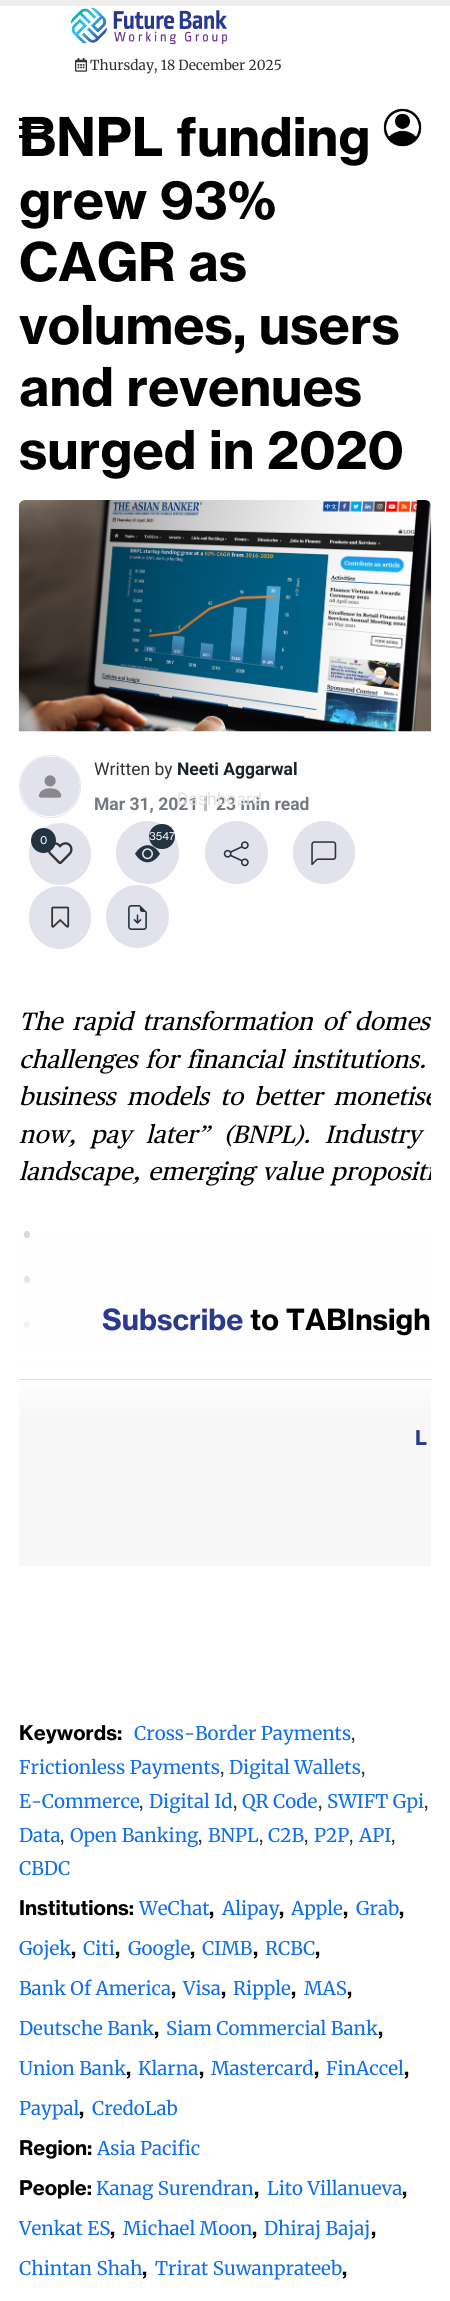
#include <cairo/cairo.h>
#include <math.h>
#include <stddef.h>


static void draw_spaced(cairo_t *cr, double x, double y, const char *s, double letter, double word) {
  cairo_move_to(cr, x, y);
  while (*s) {
    char ch[5] = {0};
    int n = 0;
    do ch[n++] = *s++; while ((*s & 0xC0) == 0x80);
    cairo_show_text(cr, ch);
    cairo_rel_move_to(cr, letter + word * (*ch == ' '), 0);
  }
}

static void rounded_rect(cairo_t *cr, double x, double y, double w, double h, double r) {
  cairo_new_sub_path(cr);
  cairo_arc(cr, x + w - r, y + h - r, r, 0, M_PI / 2);
  cairo_arc(cr, x + r, y + h - r, r, M_PI / 2, M_PI);
  cairo_arc(cr, x + r, y + r, r, M_PI, 1.5 * M_PI);
  cairo_arc(cr, x + w - r, y + r, r, 1.5 * M_PI, 2 * M_PI);
  cairo_close_path(cr);
}

static void draw_image(cairo_t *cr, const char *path, double x, double y, double w, double h) {
  cairo_surface_t *image = cairo_image_surface_create_from_png(path);
  cairo_save(cr);
  cairo_set_source_surface(cr, image, x, y);
  cairo_rectangle(cr, x, y, w, h);
  cairo_fill(cr);
  cairo_restore(cr);
  cairo_surface_destroy(image);
}

static void draw(cairo_t *cr) {
  cairo_pattern_t *gradient;
  cairo_set_source_rgb(cr, 1, 1, 1);
  cairo_paint(cr);
  draw_image(cr, "images/1.png", 70, 7, 157, 38);
  draw_image(cr, "images/2.png", 75, 58, 13, 14);
  cairo_set_source_rgb(cr, 0, 0, 0);
  cairo_rectangle(cr, 19, 126, 29, 3);
  cairo_fill(cr);
  cairo_rectangle(cr, 19, 118, 29, 3);
  cairo_fill(cr);
  cairo_rectangle(cr, 19, 135, 29, 3);
  cairo_fill(cr);
  draw_image(cr, "images/3.png", 383, 108, 39, 39);
  cairo_set_source_rgb(cr, 238 / 255.0, 238 / 255.0, 238 / 255.0);
  cairo_rectangle(cr, 0, 0, 450, 6);
  cairo_fill(cr);
  draw_image(cr, "images/4.png", 18, 500, 414, 232);
  rounded_rect(cr, 19.5, 755.5, 61, 62, 30.5);
  cairo_set_source_rgb(cr, 228 / 255.0, 229 / 255.0, 230 / 255.0);
  cairo_set_line_width(cr, 1);
  cairo_stroke(cr);
  draw_image(cr, "images/5.png", 20, 756, 60, 60);
  cairo_set_source_rgb(cr, 185 / 255.0, 188 / 255.0, 191 / 255.0);
  cairo_rectangle(cr, 204, 796, 3, 15);
  cairo_fill(cr);
  cairo_set_source_rgb(cr, 226 / 255.0, 226 / 255.0, 236 / 255.0);
  cairo_arc(cr, 60, 854, 31, 0, 2 * M_PI);
  cairo_fill(cr);
  draw_image(cr, "images/6.png", 48, 842, 25, 22);
  cairo_set_source_rgb(cr, 35 / 255.0, 51 / 255.0, 64 / 255.0);
  cairo_arc(cr, 43.5, 840.5, 12.5, 0, 2 * M_PI);
  cairo_fill(cr);
  cairo_set_source_rgb(cr, 226 / 255.0, 226 / 255.0, 236 / 255.0);
  cairo_arc(cr, 147.5, 852.5, 31.5, 0, 2 * M_PI);
  cairo_fill(cr);
  draw_image(cr, "images/7.png", 135, 845, 25, 18);
  cairo_set_source_rgb(cr, 35 / 255.0, 51 / 255.0, 64 / 255.0);
  rounded_rect(cr, 149, 824, 26, 25, 12.5);
  cairo_fill(cr);
  cairo_set_source_rgb(cr, 226 / 255.0, 226 / 255.0, 236 / 255.0);
  cairo_arc(cr, 236.5, 852.5, 31.5, 0, 2 * M_PI);
  cairo_fill(cr);
  draw_image(cr, "images/8.png", 223, 841, 26, 26);
  rounded_rect(cr, 293, 821, 62, 63, 31);
  cairo_fill(cr);
  draw_image(cr, "images/9.png", 311, 841, 26, 25);
  rounded_rect(cr, 29, 886, 62, 63, 31);
  cairo_fill(cr);
  draw_image(cr, "images/10.png", 51, 906, 19, 22);
  cairo_arc(cr, 137.5, 916.5, 31.5, 0, 2 * M_PI);
  cairo_fill(cr);
  draw_image(cr, "images/11.png", 128, 905, 19, 25);
  cairo_set_source_rgb(cr, 51 / 255.0, 51 / 255.0, 51 / 255.0);
  rounded_rect(cr, 24, 1231, 6, 7, 3);
  cairo_fill(cr);
  rounded_rect(cr, 24, 1276, 6, 7, 3);
  cairo_fill(cr);
  rounded_rect(cr, 24, 1321, 6, 7, 3);
  cairo_fill(cr);
  gradient = cairo_pattern_create_linear(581, 1191, 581, 1566);
  cairo_pattern_add_color_stop_rgba(gradient, 0, 1, 253 / 255.0, 253 / 255.0, 0.77);
  cairo_pattern_add_color_stop_rgba(gradient, 0.5, 1, 1, 1, 1);
  cairo_pattern_add_color_stop_rgba(gradient, 0.6, 247 / 255.0, 247 / 255.0, 247 / 255.0, 1);
  cairo_set_source(cr, gradient);
  cairo_pattern_destroy(gradient);
  cairo_rectangle(cr, 19, 1231, 412, 335);
  cairo_fill(cr);
  cairo_set_source_rgb(cr, 223 / 255.0, 223 / 255.0, 223 / 255.0);
  cairo_rectangle(cr, 19, 1379, 412, 1);
  cairo_fill(cr);
  cairo_select_font_face(cr, "Merriweather", CAIRO_FONT_SLANT_NORMAL, CAIRO_FONT_WEIGHT_NORMAL);
  cairo_set_font_size(cr, 13.75);
  cairo_set_source_rgb(cr, 51 / 255.0, 51 / 255.0, 51 / 255.0);
  cairo_move_to(cr, 90, 70);
  cairo_show_text(cr, "Thursday, 18 December 2025");
  cairo_select_font_face(cr, "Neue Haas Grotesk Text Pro", CAIRO_FONT_SLANT_NORMAL, CAIRO_FONT_WEIGHT_BOLD);
  cairo_set_font_size(cr, 52.5);
  cairo_set_source_rgb(cr, 0, 0, 0);
  cairo_move_to(cr, 19, 156);
  cairo_show_text(cr, "BNPL funding");
  cairo_move_to(cr, 19, 219);
  cairo_show_text(cr, "grew 93%");
  cairo_move_to(cr, 19, 281);
  cairo_show_text(cr, "CAGR as");
  cairo_move_to(cr, 19, 344);
  cairo_show_text(cr, "volumes, users");
  cairo_move_to(cr, 19, 406);
  cairo_show_text(cr, "and revenues");
  cairo_move_to(cr, 19, 469);
  cairo_show_text(cr, "surged in 2020");
  cairo_select_font_face(cr, "Roboto", CAIRO_FONT_SLANT_NORMAL, CAIRO_FONT_WEIGHT_NORMAL);
  cairo_set_font_size(cr, 17.5);
  cairo_set_source_rgb(cr, 51 / 255.0, 51 / 255.0, 51 / 255.0);
  cairo_move_to(cr, 94, 775);
  cairo_show_text(cr, "Written by");
  cairo_select_font_face(cr, "Roboto", CAIRO_FONT_SLANT_NORMAL, CAIRO_FONT_WEIGHT_BOLD);
  cairo_set_source_rgb(cr, 23 / 255.0, 34 / 255.0, 43 / 255.0);
  cairo_move_to(cr, 177, 775);
  cairo_show_text(cr, "Neeti Aggarwal");
  cairo_set_source_rgb(cr, 115 / 255.0, 121 / 255.0, 127 / 255.0);
  cairo_move_to(cr, 94, 810);
  cairo_show_text(cr, "Mar 31, 2021");
  cairo_move_to(cr, 216, 810);
  cairo_show_text(cr, "23 min read");
  cairo_select_font_face(cr, "Roboto", CAIRO_FONT_SLANT_NORMAL, CAIRO_FONT_WEIGHT_NORMAL);
  cairo_set_source_rgb(cr, 225 / 255.0, 226 / 255.0, 227 / 255.0);
  cairo_move_to(cr, 177, 805);
  cairo_show_text(cr, "Dashboard");
  cairo_select_font_face(cr, "Neue Haas Grotesk Text Pro", CAIRO_FONT_SLANT_NORMAL, CAIRO_FONT_WEIGHT_NORMAL);
  cairo_set_font_size(cr, 11);
  cairo_set_source_rgb(cr, 1, 1, 1);
  cairo_move_to(cr, 40, 844);
  cairo_show_text(cr, "0");
  cairo_move_to(cr, 149, 840);
  cairo_show_text(cr, "3547");
  cairo_select_font_face(cr, "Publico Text", CAIRO_FONT_SLANT_ITALIC, CAIRO_FONT_WEIGHT_NORMAL);
  cairo_set_font_size(cr, 25);
  cairo_set_source_rgb(cr, 0, 0, 0);
  draw_spaced(cr, 19, 1030, "The rapid transformation of domes", 0, 3.5);
  draw_spaced(cr, 19, 1068, "challenges for financial institutions.", 0, 2);
  cairo_save(cr);
  rounded_rect(cr, 19, 500, 412, 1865, 6);
  cairo_clip(cr);
  draw_spaced(cr, 19, 1105, "business models to better monetise", 0, 5);
  cairo_restore(cr);
  draw_spaced(cr, 19, 1143, "now, pay later” (BNPL). Industry", 0, 8);
  cairo_save(cr);
  rounded_rect(cr, 19, 500, 412, 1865, 6);
  cairo_clip(cr);
  draw_spaced(cr, 19, 1180, "landscape, emerging value propositi", 0, 1.5);
  cairo_restore(cr);
  cairo_select_font_face(cr, "Neue Haas Grotesk Text Pro", CAIRO_FONT_SLANT_NORMAL, CAIRO_FONT_WEIGHT_BOLD);
  cairo_set_font_size(cr, 28.75);
  cairo_set_source_rgb(cr, 43 / 255.0, 57 / 255.0, 144 / 255.0);
  cairo_move_to(cr, 102, 1330);
  cairo_show_text(cr, "Subscribe");
  cairo_set_source_rgb(cr, 0, 0, 0);
  cairo_move_to(cr, 250, 1330);
  cairo_show_text(cr, "to TABInsigh");
  cairo_set_font_size(cr, 20);
  cairo_set_source_rgb(cr, 43 / 255.0, 57 / 255.0, 144 / 255.0);
  cairo_move_to(cr, 415, 1445);
  cairo_show_text(cr, "L");
  cairo_set_source_rgb(cr, 0, 0, 0);
  cairo_move_to(cr, 19, 1740);
  cairo_show_text(cr, "Keywords:");
  cairo_select_font_face(cr, "Merriweather", CAIRO_FONT_SLANT_NORMAL, CAIRO_FONT_WEIGHT_NORMAL);
  cairo_set_font_size(cr, 18.75);
  cairo_set_source_rgb(cr, 15 / 255.0, 111 / 255.0, 236 / 255.0);
  cairo_move_to(cr, 134, 1740);
  cairo_show_text(cr, "Cross-Border Payments");
  cairo_select_font_face(cr, "Neue Haas Grotesk Text Pro", CAIRO_FONT_SLANT_NORMAL, CAIRO_FONT_WEIGHT_NORMAL);
  cairo_set_font_size(cr, 20);
  cairo_set_source_rgb(cr, 51 / 255.0, 51 / 255.0, 51 / 255.0);
  cairo_move_to(cr, 351, 1740);
  cairo_show_text(cr, ",");
  cairo_select_font_face(cr, "Merriweather", CAIRO_FONT_SLANT_NORMAL, CAIRO_FONT_WEIGHT_NORMAL);
  cairo_set_font_size(cr, 18.75);
  cairo_set_source_rgb(cr, 15 / 255.0, 111 / 255.0, 236 / 255.0);
  cairo_move_to(cr, 19, 1774);
  cairo_show_text(cr, "Frictionless Payments");
  cairo_select_font_face(cr, "Neue Haas Grotesk Text Pro", CAIRO_FONT_SLANT_NORMAL, CAIRO_FONT_WEIGHT_NORMAL);
  cairo_set_font_size(cr, 20);
  cairo_set_source_rgb(cr, 51 / 255.0, 51 / 255.0, 51 / 255.0);
  cairo_move_to(cr, 220, 1774);
  cairo_show_text(cr, ",");
  cairo_select_font_face(cr, "Merriweather", CAIRO_FONT_SLANT_NORMAL, CAIRO_FONT_WEIGHT_NORMAL);
  cairo_set_font_size(cr, 18.75);
  cairo_set_source_rgb(cr, 15 / 255.0, 111 / 255.0, 236 / 255.0);
  cairo_move_to(cr, 229, 1774);
  cairo_show_text(cr, "Digital Wallets");
  cairo_select_font_face(cr, "Neue Haas Grotesk Text Pro", CAIRO_FONT_SLANT_NORMAL, CAIRO_FONT_WEIGHT_NORMAL);
  cairo_set_font_size(cr, 20);
  cairo_set_source_rgb(cr, 51 / 255.0, 51 / 255.0, 51 / 255.0);
  cairo_move_to(cr, 361, 1774);
  cairo_show_text(cr, ",");
  cairo_select_font_face(cr, "Merriweather", CAIRO_FONT_SLANT_NORMAL, CAIRO_FONT_WEIGHT_NORMAL);
  cairo_set_font_size(cr, 18.75);
  cairo_set_source_rgb(cr, 15 / 255.0, 111 / 255.0, 236 / 255.0);
  cairo_move_to(cr, 19, 1808);
  cairo_show_text(cr, "E-Commerce");
  cairo_select_font_face(cr, "Neue Haas Grotesk Text Pro", CAIRO_FONT_SLANT_NORMAL, CAIRO_FONT_WEIGHT_NORMAL);
  cairo_set_font_size(cr, 20);
  cairo_set_source_rgb(cr, 51 / 255.0, 51 / 255.0, 51 / 255.0);
  cairo_move_to(cr, 139, 1808);
  cairo_show_text(cr, ",");
  cairo_select_font_face(cr, "Merriweather", CAIRO_FONT_SLANT_NORMAL, CAIRO_FONT_WEIGHT_NORMAL);
  cairo_set_font_size(cr, 18.75);
  cairo_set_source_rgb(cr, 15 / 255.0, 111 / 255.0, 236 / 255.0);
  cairo_move_to(cr, 149, 1808);
  cairo_show_text(cr, "Digital Id");
  cairo_select_font_face(cr, "Neue Haas Grotesk Text Pro", CAIRO_FONT_SLANT_NORMAL, CAIRO_FONT_WEIGHT_NORMAL);
  cairo_set_font_size(cr, 20);
  cairo_set_source_rgb(cr, 51 / 255.0, 51 / 255.0, 51 / 255.0);
  cairo_move_to(cr, 233, 1808);
  cairo_show_text(cr, ",");
  cairo_select_font_face(cr, "Merriweather", CAIRO_FONT_SLANT_NORMAL, CAIRO_FONT_WEIGHT_NORMAL);
  cairo_set_font_size(cr, 18.75);
  cairo_set_source_rgb(cr, 15 / 255.0, 111 / 255.0, 236 / 255.0);
  cairo_move_to(cr, 242, 1808);
  cairo_show_text(cr, "QR Code");
  cairo_select_font_face(cr, "Neue Haas Grotesk Text Pro", CAIRO_FONT_SLANT_NORMAL, CAIRO_FONT_WEIGHT_NORMAL);
  cairo_set_font_size(cr, 20);
  cairo_set_source_rgb(cr, 51 / 255.0, 51 / 255.0, 51 / 255.0);
  cairo_move_to(cr, 318, 1808);
  cairo_show_text(cr, ",");
  cairo_select_font_face(cr, "Merriweather", CAIRO_FONT_SLANT_NORMAL, CAIRO_FONT_WEIGHT_NORMAL);
  cairo_set_font_size(cr, 18.75);
  cairo_set_source_rgb(cr, 15 / 255.0, 111 / 255.0, 236 / 255.0);
  cairo_move_to(cr, 327, 1808);
  cairo_show_text(cr, "SWIFT Gpi");
  cairo_select_font_face(cr, "Neue Haas Grotesk Text Pro", CAIRO_FONT_SLANT_NORMAL, CAIRO_FONT_WEIGHT_NORMAL);
  cairo_set_font_size(cr, 20);
  cairo_set_source_rgb(cr, 51 / 255.0, 51 / 255.0, 51 / 255.0);
  cairo_move_to(cr, 424, 1808);
  cairo_show_text(cr, ",");
  cairo_select_font_face(cr, "Merriweather", CAIRO_FONT_SLANT_NORMAL, CAIRO_FONT_WEIGHT_NORMAL);
  cairo_set_font_size(cr, 18.75);
  cairo_set_source_rgb(cr, 15 / 255.0, 111 / 255.0, 236 / 255.0);
  cairo_move_to(cr, 19, 1842);
  cairo_show_text(cr, "Data");
  cairo_select_font_face(cr, "Neue Haas Grotesk Text Pro", CAIRO_FONT_SLANT_NORMAL, CAIRO_FONT_WEIGHT_NORMAL);
  cairo_set_font_size(cr, 20);
  cairo_set_source_rgb(cr, 51 / 255.0, 51 / 255.0, 51 / 255.0);
  cairo_move_to(cr, 60, 1842);
  cairo_show_text(cr, ",");
  cairo_select_font_face(cr, "Merriweather", CAIRO_FONT_SLANT_NORMAL, CAIRO_FONT_WEIGHT_NORMAL);
  cairo_set_font_size(cr, 18.75);
  cairo_set_source_rgb(cr, 15 / 255.0, 111 / 255.0, 236 / 255.0);
  cairo_move_to(cr, 70, 1842);
  cairo_show_text(cr, "Open Banking");
  cairo_select_font_face(cr, "Neue Haas Grotesk Text Pro", CAIRO_FONT_SLANT_NORMAL, CAIRO_FONT_WEIGHT_NORMAL);
  cairo_set_font_size(cr, 20);
  cairo_set_source_rgb(cr, 51 / 255.0, 51 / 255.0, 51 / 255.0);
  cairo_move_to(cr, 198, 1842);
  cairo_show_text(cr, ",");
  cairo_select_font_face(cr, "Merriweather", CAIRO_FONT_SLANT_NORMAL, CAIRO_FONT_WEIGHT_NORMAL);
  cairo_set_font_size(cr, 18.75);
  cairo_set_source_rgb(cr, 15 / 255.0, 111 / 255.0, 236 / 255.0);
  cairo_move_to(cr, 208, 1842);
  cairo_show_text(cr, "BNPL");
  cairo_select_font_face(cr, "Neue Haas Grotesk Text Pro", CAIRO_FONT_SLANT_NORMAL, CAIRO_FONT_WEIGHT_NORMAL);
  cairo_set_font_size(cr, 20);
  cairo_set_source_rgb(cr, 51 / 255.0, 51 / 255.0, 51 / 255.0);
  cairo_move_to(cr, 259, 1842);
  cairo_show_text(cr, ",");
  cairo_select_font_face(cr, "Merriweather", CAIRO_FONT_SLANT_NORMAL, CAIRO_FONT_WEIGHT_NORMAL);
  cairo_set_font_size(cr, 18.75);
  cairo_set_source_rgb(cr, 15 / 255.0, 111 / 255.0, 236 / 255.0);
  cairo_move_to(cr, 268, 1842);
  cairo_show_text(cr, "C2B");
  cairo_select_font_face(cr, "Neue Haas Grotesk Text Pro", CAIRO_FONT_SLANT_NORMAL, CAIRO_FONT_WEIGHT_NORMAL);
  cairo_set_font_size(cr, 20);
  cairo_set_source_rgb(cr, 51 / 255.0, 51 / 255.0, 51 / 255.0);
  cairo_move_to(cr, 304, 1842);
  cairo_show_text(cr, ",");
  cairo_select_font_face(cr, "Merriweather", CAIRO_FONT_SLANT_NORMAL, CAIRO_FONT_WEIGHT_NORMAL);
  cairo_set_font_size(cr, 18.75);
  cairo_set_source_rgb(cr, 15 / 255.0, 111 / 255.0, 236 / 255.0);
  cairo_move_to(cr, 314, 1842);
  cairo_show_text(cr, "P2P");
  cairo_select_font_face(cr, "Neue Haas Grotesk Text Pro", CAIRO_FONT_SLANT_NORMAL, CAIRO_FONT_WEIGHT_NORMAL);
  cairo_set_font_size(cr, 20);
  cairo_set_source_rgb(cr, 51 / 255.0, 51 / 255.0, 51 / 255.0);
  cairo_move_to(cr, 349, 1842);
  cairo_show_text(cr, ",");
  cairo_select_font_face(cr, "Merriweather", CAIRO_FONT_SLANT_NORMAL, CAIRO_FONT_WEIGHT_NORMAL);
  cairo_set_font_size(cr, 18.75);
  cairo_set_source_rgb(cr, 15 / 255.0, 111 / 255.0, 236 / 255.0);
  cairo_move_to(cr, 359, 1842);
  cairo_show_text(cr, "API");
  cairo_select_font_face(cr, "Neue Haas Grotesk Text Pro", CAIRO_FONT_SLANT_NORMAL, CAIRO_FONT_WEIGHT_NORMAL);
  cairo_set_font_size(cr, 20);
  cairo_set_source_rgb(cr, 51 / 255.0, 51 / 255.0, 51 / 255.0);
  cairo_move_to(cr, 391, 1842);
  cairo_show_text(cr, ",");
  cairo_select_font_face(cr, "Merriweather", CAIRO_FONT_SLANT_NORMAL, CAIRO_FONT_WEIGHT_NORMAL);
  cairo_set_font_size(cr, 18.75);
  cairo_set_source_rgb(cr, 15 / 255.0, 111 / 255.0, 236 / 255.0);
  cairo_move_to(cr, 19, 1875);
  cairo_show_text(cr, "CBDC");
  cairo_select_font_face(cr, "Neue Haas Grotesk Text Pro", CAIRO_FONT_SLANT_NORMAL, CAIRO_FONT_WEIGHT_BOLD);
  cairo_set_font_size(cr, 20);
  cairo_set_source_rgb(cr, 0, 0, 0);
  cairo_move_to(cr, 19, 1915);
  cairo_show_text(cr, "Institutions:");
  cairo_select_font_face(cr, "Merriweather", CAIRO_FONT_SLANT_NORMAL, CAIRO_FONT_WEIGHT_NORMAL);
  cairo_set_font_size(cr, 18.75);
  cairo_set_source_rgb(cr, 15 / 255.0, 111 / 255.0, 236 / 255.0);
  cairo_move_to(cr, 139, 1915);
  cairo_show_text(cr, "WeChat");
  cairo_select_font_face(cr, "Neue Haas Grotesk Text Pro", CAIRO_FONT_SLANT_NORMAL, CAIRO_FONT_WEIGHT_BOLD);
  cairo_set_font_size(cr, 20);
  cairo_set_source_rgb(cr, 0, 0, 0);
  cairo_move_to(cr, 209, 1915);
  cairo_show_text(cr, ",");
  cairo_select_font_face(cr, "Merriweather", CAIRO_FONT_SLANT_NORMAL, CAIRO_FONT_WEIGHT_NORMAL);
  cairo_set_font_size(cr, 18.75);
  cairo_set_source_rgb(cr, 15 / 255.0, 111 / 255.0, 236 / 255.0);
  cairo_move_to(cr, 222, 1915);
  cairo_show_text(cr, "Alipay");
  cairo_select_font_face(cr, "Neue Haas Grotesk Text Pro", CAIRO_FONT_SLANT_NORMAL, CAIRO_FONT_WEIGHT_BOLD);
  cairo_set_font_size(cr, 20);
  cairo_set_source_rgb(cr, 0, 0, 0);
  cairo_move_to(cr, 279, 1915);
  cairo_show_text(cr, ",");
  cairo_select_font_face(cr, "Merriweather", CAIRO_FONT_SLANT_NORMAL, CAIRO_FONT_WEIGHT_NORMAL);
  cairo_set_font_size(cr, 18.75);
  cairo_set_source_rgb(cr, 15 / 255.0, 111 / 255.0, 236 / 255.0);
  cairo_move_to(cr, 291, 1915);
  cairo_show_text(cr, "Apple");
  cairo_select_font_face(cr, "Neue Haas Grotesk Text Pro", CAIRO_FONT_SLANT_NORMAL, CAIRO_FONT_WEIGHT_BOLD);
  cairo_set_font_size(cr, 20);
  cairo_set_source_rgb(cr, 0, 0, 0);
  cairo_move_to(cr, 343, 1915);
  cairo_show_text(cr, ",");
  cairo_select_font_face(cr, "Merriweather", CAIRO_FONT_SLANT_NORMAL, CAIRO_FONT_WEIGHT_NORMAL);
  cairo_set_font_size(cr, 18.75);
  cairo_set_source_rgb(cr, 15 / 255.0, 111 / 255.0, 236 / 255.0);
  cairo_move_to(cr, 356, 1915);
  cairo_show_text(cr, "Grab");
  cairo_select_font_face(cr, "Neue Haas Grotesk Text Pro", CAIRO_FONT_SLANT_NORMAL, CAIRO_FONT_WEIGHT_BOLD);
  cairo_set_font_size(cr, 20);
  cairo_set_source_rgb(cr, 0, 0, 0);
  cairo_move_to(cr, 399, 1915);
  cairo_show_text(cr, ",");
  cairo_select_font_face(cr, "Merriweather", CAIRO_FONT_SLANT_NORMAL, CAIRO_FONT_WEIGHT_NORMAL);
  cairo_set_font_size(cr, 18.75);
  cairo_set_source_rgb(cr, 15 / 255.0, 111 / 255.0, 236 / 255.0);
  cairo_move_to(cr, 19, 1955);
  cairo_show_text(cr, "Gojek");
  cairo_select_font_face(cr, "Neue Haas Grotesk Text Pro", CAIRO_FONT_SLANT_NORMAL, CAIRO_FONT_WEIGHT_BOLD);
  cairo_set_font_size(cr, 20);
  cairo_set_source_rgb(cr, 0, 0, 0);
  cairo_move_to(cr, 71, 1955);
  cairo_show_text(cr, ",");
  cairo_select_font_face(cr, "Merriweather", CAIRO_FONT_SLANT_NORMAL, CAIRO_FONT_WEIGHT_NORMAL);
  cairo_set_font_size(cr, 18.75);
  cairo_set_source_rgb(cr, 15 / 255.0, 111 / 255.0, 236 / 255.0);
  cairo_move_to(cr, 83, 1955);
  cairo_show_text(cr, "Citi");
  cairo_select_font_face(cr, "Neue Haas Grotesk Text Pro", CAIRO_FONT_SLANT_NORMAL, CAIRO_FONT_WEIGHT_BOLD);
  cairo_set_font_size(cr, 20);
  cairo_set_source_rgb(cr, 0, 0, 0);
  cairo_move_to(cr, 115, 1955);
  cairo_show_text(cr, ",");
  cairo_select_font_face(cr, "Merriweather", CAIRO_FONT_SLANT_NORMAL, CAIRO_FONT_WEIGHT_NORMAL);
  cairo_set_font_size(cr, 18.75);
  cairo_set_source_rgb(cr, 15 / 255.0, 111 / 255.0, 236 / 255.0);
  cairo_move_to(cr, 128, 1955);
  cairo_show_text(cr, "Google");
  cairo_select_font_face(cr, "Neue Haas Grotesk Text Pro", CAIRO_FONT_SLANT_NORMAL, CAIRO_FONT_WEIGHT_BOLD);
  cairo_set_font_size(cr, 20);
  cairo_set_source_rgb(cr, 0, 0, 0);
  cairo_move_to(cr, 190, 1955);
  cairo_show_text(cr, ",");
  cairo_select_font_face(cr, "Merriweather", CAIRO_FONT_SLANT_NORMAL, CAIRO_FONT_WEIGHT_NORMAL);
  cairo_set_font_size(cr, 18.75);
  cairo_set_source_rgb(cr, 15 / 255.0, 111 / 255.0, 236 / 255.0);
  cairo_move_to(cr, 202, 1955);
  cairo_show_text(cr, "CIMB");
  cairo_select_font_face(cr, "Neue Haas Grotesk Text Pro", CAIRO_FONT_SLANT_NORMAL, CAIRO_FONT_WEIGHT_BOLD);
  cairo_set_font_size(cr, 20);
  cairo_set_source_rgb(cr, 0, 0, 0);
  cairo_move_to(cr, 253, 1955);
  cairo_show_text(cr, ",");
  cairo_select_font_face(cr, "Merriweather", CAIRO_FONT_SLANT_NORMAL, CAIRO_FONT_WEIGHT_NORMAL);
  cairo_set_font_size(cr, 18.75);
  cairo_set_source_rgb(cr, 15 / 255.0, 111 / 255.0, 236 / 255.0);
  cairo_move_to(cr, 265, 1955);
  cairo_show_text(cr, "RCBC");
  cairo_select_font_face(cr, "Neue Haas Grotesk Text Pro", CAIRO_FONT_SLANT_NORMAL, CAIRO_FONT_WEIGHT_BOLD);
  cairo_set_font_size(cr, 20);
  cairo_set_source_rgb(cr, 0, 0, 0);
  cairo_move_to(cr, 315, 1955);
  cairo_show_text(cr, ",");
  cairo_select_font_face(cr, "Merriweather", CAIRO_FONT_SLANT_NORMAL, CAIRO_FONT_WEIGHT_NORMAL);
  cairo_set_font_size(cr, 18.75);
  cairo_set_source_rgb(cr, 15 / 255.0, 111 / 255.0, 236 / 255.0);
  cairo_move_to(cr, 19, 1995);
  cairo_show_text(cr, "Bank Of America");
  cairo_select_font_face(cr, "Neue Haas Grotesk Text Pro", CAIRO_FONT_SLANT_NORMAL, CAIRO_FONT_WEIGHT_BOLD);
  cairo_set_font_size(cr, 20);
  cairo_set_source_rgb(cr, 0, 0, 0);
  cairo_move_to(cr, 171, 1995);
  cairo_show_text(cr, ",");
  cairo_select_font_face(cr, "Merriweather", CAIRO_FONT_SLANT_NORMAL, CAIRO_FONT_WEIGHT_NORMAL);
  cairo_set_font_size(cr, 18.75);
  cairo_set_source_rgb(cr, 15 / 255.0, 111 / 255.0, 236 / 255.0);
  cairo_move_to(cr, 183, 1995);
  cairo_show_text(cr, "Visa");
  cairo_select_font_face(cr, "Neue Haas Grotesk Text Pro", CAIRO_FONT_SLANT_NORMAL, CAIRO_FONT_WEIGHT_BOLD);
  cairo_set_font_size(cr, 20);
  cairo_set_source_rgb(cr, 0, 0, 0);
  cairo_move_to(cr, 221, 1995);
  cairo_show_text(cr, ",");
  cairo_select_font_face(cr, "Merriweather", CAIRO_FONT_SLANT_NORMAL, CAIRO_FONT_WEIGHT_NORMAL);
  cairo_set_font_size(cr, 18.75);
  cairo_set_source_rgb(cr, 15 / 255.0, 111 / 255.0, 236 / 255.0);
  cairo_move_to(cr, 233, 1995);
  cairo_show_text(cr, "Ripple");
  cairo_select_font_face(cr, "Neue Haas Grotesk Text Pro", CAIRO_FONT_SLANT_NORMAL, CAIRO_FONT_WEIGHT_BOLD);
  cairo_set_font_size(cr, 20);
  cairo_set_source_rgb(cr, 0, 0, 0);
  cairo_move_to(cr, 291, 1995);
  cairo_show_text(cr, ",");
  cairo_select_font_face(cr, "Merriweather", CAIRO_FONT_SLANT_NORMAL, CAIRO_FONT_WEIGHT_NORMAL);
  cairo_set_font_size(cr, 18.75);
  cairo_set_source_rgb(cr, 15 / 255.0, 111 / 255.0, 236 / 255.0);
  cairo_move_to(cr, 304, 1995);
  cairo_show_text(cr, "MAS");
  cairo_select_font_face(cr, "Neue Haas Grotesk Text Pro", CAIRO_FONT_SLANT_NORMAL, CAIRO_FONT_WEIGHT_BOLD);
  cairo_set_font_size(cr, 20);
  cairo_set_source_rgb(cr, 0, 0, 0);
  cairo_move_to(cr, 347, 1995);
  cairo_show_text(cr, ",");
  cairo_select_font_face(cr, "Merriweather", CAIRO_FONT_SLANT_NORMAL, CAIRO_FONT_WEIGHT_NORMAL);
  cairo_set_font_size(cr, 18.75);
  cairo_set_source_rgb(cr, 15 / 255.0, 111 / 255.0, 236 / 255.0);
  cairo_move_to(cr, 19, 2035);
  cairo_show_text(cr, "Deutsche Bank");
  cairo_select_font_face(cr, "Neue Haas Grotesk Text Pro", CAIRO_FONT_SLANT_NORMAL, CAIRO_FONT_WEIGHT_BOLD);
  cairo_set_font_size(cr, 20);
  cairo_set_source_rgb(cr, 0, 0, 0);
  cairo_move_to(cr, 154, 2035);
  cairo_show_text(cr, ",");
  cairo_select_font_face(cr, "Merriweather", CAIRO_FONT_SLANT_NORMAL, CAIRO_FONT_WEIGHT_NORMAL);
  cairo_set_font_size(cr, 18.75);
  cairo_set_source_rgb(cr, 15 / 255.0, 111 / 255.0, 236 / 255.0);
  cairo_move_to(cr, 166, 2035);
  cairo_show_text(cr, "Siam Commercial Bank");
  cairo_select_font_face(cr, "Neue Haas Grotesk Text Pro", CAIRO_FONT_SLANT_NORMAL, CAIRO_FONT_WEIGHT_BOLD);
  cairo_set_font_size(cr, 20);
  cairo_set_source_rgb(cr, 0, 0, 0);
  cairo_move_to(cr, 378, 2035);
  cairo_show_text(cr, ",");
  cairo_select_font_face(cr, "Merriweather", CAIRO_FONT_SLANT_NORMAL, CAIRO_FONT_WEIGHT_NORMAL);
  cairo_set_font_size(cr, 18.75);
  cairo_set_source_rgb(cr, 15 / 255.0, 111 / 255.0, 236 / 255.0);
  cairo_move_to(cr, 19, 2075);
  cairo_show_text(cr, "Union Bank");
  cairo_select_font_face(cr, "Neue Haas Grotesk Text Pro", CAIRO_FONT_SLANT_NORMAL, CAIRO_FONT_WEIGHT_BOLD);
  cairo_set_font_size(cr, 20);
  cairo_set_source_rgb(cr, 0, 0, 0);
  cairo_move_to(cr, 126, 2075);
  cairo_show_text(cr, ",");
  cairo_select_font_face(cr, "Merriweather", CAIRO_FONT_SLANT_NORMAL, CAIRO_FONT_WEIGHT_NORMAL);
  cairo_set_font_size(cr, 18.75);
  cairo_set_source_rgb(cr, 15 / 255.0, 111 / 255.0, 236 / 255.0);
  cairo_move_to(cr, 138, 2075);
  cairo_show_text(cr, "Klarna");
  cairo_select_font_face(cr, "Neue Haas Grotesk Text Pro", CAIRO_FONT_SLANT_NORMAL, CAIRO_FONT_WEIGHT_BOLD);
  cairo_set_font_size(cr, 20);
  cairo_set_source_rgb(cr, 0, 0, 0);
  cairo_move_to(cr, 199, 2075);
  cairo_show_text(cr, ",");
  cairo_select_font_face(cr, "Merriweather", CAIRO_FONT_SLANT_NORMAL, CAIRO_FONT_WEIGHT_NORMAL);
  cairo_set_font_size(cr, 18.75);
  cairo_set_source_rgb(cr, 15 / 255.0, 111 / 255.0, 236 / 255.0);
  cairo_move_to(cr, 211, 2075);
  cairo_show_text(cr, "Mastercard");
  cairo_select_font_face(cr, "Neue Haas Grotesk Text Pro", CAIRO_FONT_SLANT_NORMAL, CAIRO_FONT_WEIGHT_BOLD);
  cairo_set_font_size(cr, 20);
  cairo_set_source_rgb(cr, 0, 0, 0);
  cairo_move_to(cr, 314, 2075);
  cairo_show_text(cr, ",");
  cairo_select_font_face(cr, "Merriweather", CAIRO_FONT_SLANT_NORMAL, CAIRO_FONT_WEIGHT_NORMAL);
  cairo_set_font_size(cr, 18.75);
  cairo_set_source_rgb(cr, 15 / 255.0, 111 / 255.0, 236 / 255.0);
  cairo_move_to(cr, 326, 2075);
  cairo_show_text(cr, "FinAccel");
  cairo_select_font_face(cr, "Neue Haas Grotesk Text Pro", CAIRO_FONT_SLANT_NORMAL, CAIRO_FONT_WEIGHT_BOLD);
  cairo_set_font_size(cr, 20);
  cairo_set_source_rgb(cr, 0, 0, 0);
  cairo_move_to(cr, 404, 2075);
  cairo_show_text(cr, ",");
  cairo_select_font_face(cr, "Merriweather", CAIRO_FONT_SLANT_NORMAL, CAIRO_FONT_WEIGHT_NORMAL);
  cairo_set_font_size(cr, 18.75);
  cairo_set_source_rgb(cr, 15 / 255.0, 111 / 255.0, 236 / 255.0);
  cairo_move_to(cr, 19, 2115);
  cairo_show_text(cr, "Paypal");
  cairo_select_font_face(cr, "Neue Haas Grotesk Text Pro", CAIRO_FONT_SLANT_NORMAL, CAIRO_FONT_WEIGHT_BOLD);
  cairo_set_font_size(cr, 20);
  cairo_set_source_rgb(cr, 0, 0, 0);
  cairo_move_to(cr, 79, 2115);
  cairo_show_text(cr, ",");
  cairo_select_font_face(cr, "Merriweather", CAIRO_FONT_SLANT_NORMAL, CAIRO_FONT_WEIGHT_NORMAL);
  cairo_set_font_size(cr, 18.75);
  cairo_set_source_rgb(cr, 15 / 255.0, 111 / 255.0, 236 / 255.0);
  cairo_move_to(cr, 92, 2115);
  cairo_show_text(cr, "CredoLab");
  cairo_select_font_face(cr, "Neue Haas Grotesk Text Pro", CAIRO_FONT_SLANT_NORMAL, CAIRO_FONT_WEIGHT_BOLD);
  cairo_set_font_size(cr, 20);
  cairo_set_source_rgb(cr, 0, 0, 0);
  cairo_move_to(cr, 19, 2155);
  cairo_show_text(cr, "Region:");
  cairo_select_font_face(cr, "Merriweather", CAIRO_FONT_SLANT_NORMAL, CAIRO_FONT_WEIGHT_NORMAL);
  cairo_set_font_size(cr, 18.75);
  cairo_set_source_rgb(cr, 15 / 255.0, 111 / 255.0, 236 / 255.0);
  cairo_move_to(cr, 97, 2155);
  cairo_show_text(cr, "Asia Pacific");
  cairo_select_font_face(cr, "Neue Haas Grotesk Text Pro", CAIRO_FONT_SLANT_NORMAL, CAIRO_FONT_WEIGHT_BOLD);
  cairo_set_font_size(cr, 20);
  cairo_set_source_rgb(cr, 0, 0, 0);
  cairo_move_to(cr, 19, 2195);
  cairo_show_text(cr, "People:");
  cairo_select_font_face(cr, "Merriweather", CAIRO_FONT_SLANT_NORMAL, CAIRO_FONT_WEIGHT_NORMAL);
  cairo_set_font_size(cr, 18.75);
  cairo_set_source_rgb(cr, 15 / 255.0, 111 / 255.0, 236 / 255.0);
  cairo_move_to(cr, 96, 2195);
  cairo_show_text(cr, "Kanag Surendran");
  cairo_select_font_face(cr, "Neue Haas Grotesk Text Pro", CAIRO_FONT_SLANT_NORMAL, CAIRO_FONT_WEIGHT_BOLD);
  cairo_set_font_size(cr, 20);
  cairo_set_source_rgb(cr, 0, 0, 0);
  cairo_move_to(cr, 254, 2195);
  cairo_show_text(cr, ",");
  cairo_select_font_face(cr, "Merriweather", CAIRO_FONT_SLANT_NORMAL, CAIRO_FONT_WEIGHT_NORMAL);
  cairo_set_font_size(cr, 18.75);
  cairo_set_source_rgb(cr, 15 / 255.0, 111 / 255.0, 236 / 255.0);
  cairo_move_to(cr, 267, 2195);
  cairo_show_text(cr, "Lito Villanueva");
  cairo_select_font_face(cr, "Neue Haas Grotesk Text Pro", CAIRO_FONT_SLANT_NORMAL, CAIRO_FONT_WEIGHT_BOLD);
  cairo_set_font_size(cr, 20);
  cairo_set_source_rgb(cr, 0, 0, 0);
  cairo_move_to(cr, 402, 2195);
  cairo_show_text(cr, ",");
  cairo_select_font_face(cr, "Merriweather", CAIRO_FONT_SLANT_NORMAL, CAIRO_FONT_WEIGHT_NORMAL);
  cairo_set_font_size(cr, 18.75);
  cairo_set_source_rgb(cr, 15 / 255.0, 111 / 255.0, 236 / 255.0);
  cairo_move_to(cr, 19, 2235);
  cairo_show_text(cr, "Venkat ES");
  cairo_select_font_face(cr, "Neue Haas Grotesk Text Pro", CAIRO_FONT_SLANT_NORMAL, CAIRO_FONT_WEIGHT_BOLD);
  cairo_set_font_size(cr, 20);
  cairo_set_source_rgb(cr, 0, 0, 0);
  cairo_move_to(cr, 110, 2235);
  cairo_show_text(cr, ",");
  cairo_select_font_face(cr, "Merriweather", CAIRO_FONT_SLANT_NORMAL, CAIRO_FONT_WEIGHT_NORMAL);
  cairo_set_font_size(cr, 18.75);
  cairo_set_source_rgb(cr, 15 / 255.0, 111 / 255.0, 236 / 255.0);
  cairo_move_to(cr, 123, 2235);
  cairo_show_text(cr, "Michael Moon");
  cairo_select_font_face(cr, "Neue Haas Grotesk Text Pro", CAIRO_FONT_SLANT_NORMAL, CAIRO_FONT_WEIGHT_BOLD);
  cairo_set_font_size(cr, 20);
  cairo_set_source_rgb(cr, 0, 0, 0);
  cairo_move_to(cr, 252, 2235);
  cairo_show_text(cr, ",");
  cairo_select_font_face(cr, "Merriweather", CAIRO_FONT_SLANT_NORMAL, CAIRO_FONT_WEIGHT_NORMAL);
  cairo_set_font_size(cr, 18.75);
  cairo_set_source_rgb(cr, 15 / 255.0, 111 / 255.0, 236 / 255.0);
  cairo_move_to(cr, 264, 2235);
  cairo_show_text(cr, "Dhiraj Bajaj");
  cairo_select_font_face(cr, "Neue Haas Grotesk Text Pro", CAIRO_FONT_SLANT_NORMAL, CAIRO_FONT_WEIGHT_BOLD);
  cairo_set_font_size(cr, 20);
  cairo_set_source_rgb(cr, 0, 0, 0);
  cairo_move_to(cr, 371, 2235);
  cairo_show_text(cr, ",");
  cairo_select_font_face(cr, "Merriweather", CAIRO_FONT_SLANT_NORMAL, CAIRO_FONT_WEIGHT_NORMAL);
  cairo_set_font_size(cr, 18.75);
  cairo_set_source_rgb(cr, 15 / 255.0, 111 / 255.0, 236 / 255.0);
  cairo_move_to(cr, 19, 2275);
  cairo_show_text(cr, "Chintan Shah");
  cairo_select_font_face(cr, "Neue Haas Grotesk Text Pro", CAIRO_FONT_SLANT_NORMAL, CAIRO_FONT_WEIGHT_BOLD);
  cairo_set_font_size(cr, 20);
  cairo_set_source_rgb(cr, 0, 0, 0);
  cairo_move_to(cr, 142, 2275);
  cairo_show_text(cr, ",");
  cairo_select_font_face(cr, "Merriweather", CAIRO_FONT_SLANT_NORMAL, CAIRO_FONT_WEIGHT_NORMAL);
  cairo_set_font_size(cr, 18.75);
  cairo_set_source_rgb(cr, 15 / 255.0, 111 / 255.0, 236 / 255.0);
  cairo_move_to(cr, 155, 2275);
  cairo_show_text(cr, "Trirat Suwanprateeb");
  cairo_select_font_face(cr, "Neue Haas Grotesk Text Pro", CAIRO_FONT_SLANT_NORMAL, CAIRO_FONT_WEIGHT_BOLD);
  cairo_set_font_size(cr, 20);
  cairo_set_source_rgb(cr, 0, 0, 0);
  cairo_move_to(cr, 342, 2275);
  cairo_show_text(cr, ",");
}

int main(void) {
  cairo_surface_t *surface = cairo_image_surface_create(CAIRO_FORMAT_RGB24, 450, 2301);
  cairo_t *cr = cairo_create(surface);
  cairo_font_options_t *options = cairo_font_options_create();
  cairo_font_options_set_hint_metrics(options, CAIRO_HINT_METRICS_OFF);
  cairo_font_options_set_hint_style(options, CAIRO_HINT_STYLE_NONE);
  cairo_set_font_options(cr, options);
  cairo_set_miter_limit(cr, 4);
  draw(cr);
  cairo_surface_write_to_png(surface, "out.png");
  cairo_font_options_destroy(options);
  cairo_destroy(cr);
  cairo_surface_destroy(surface);
  return 0;
}
